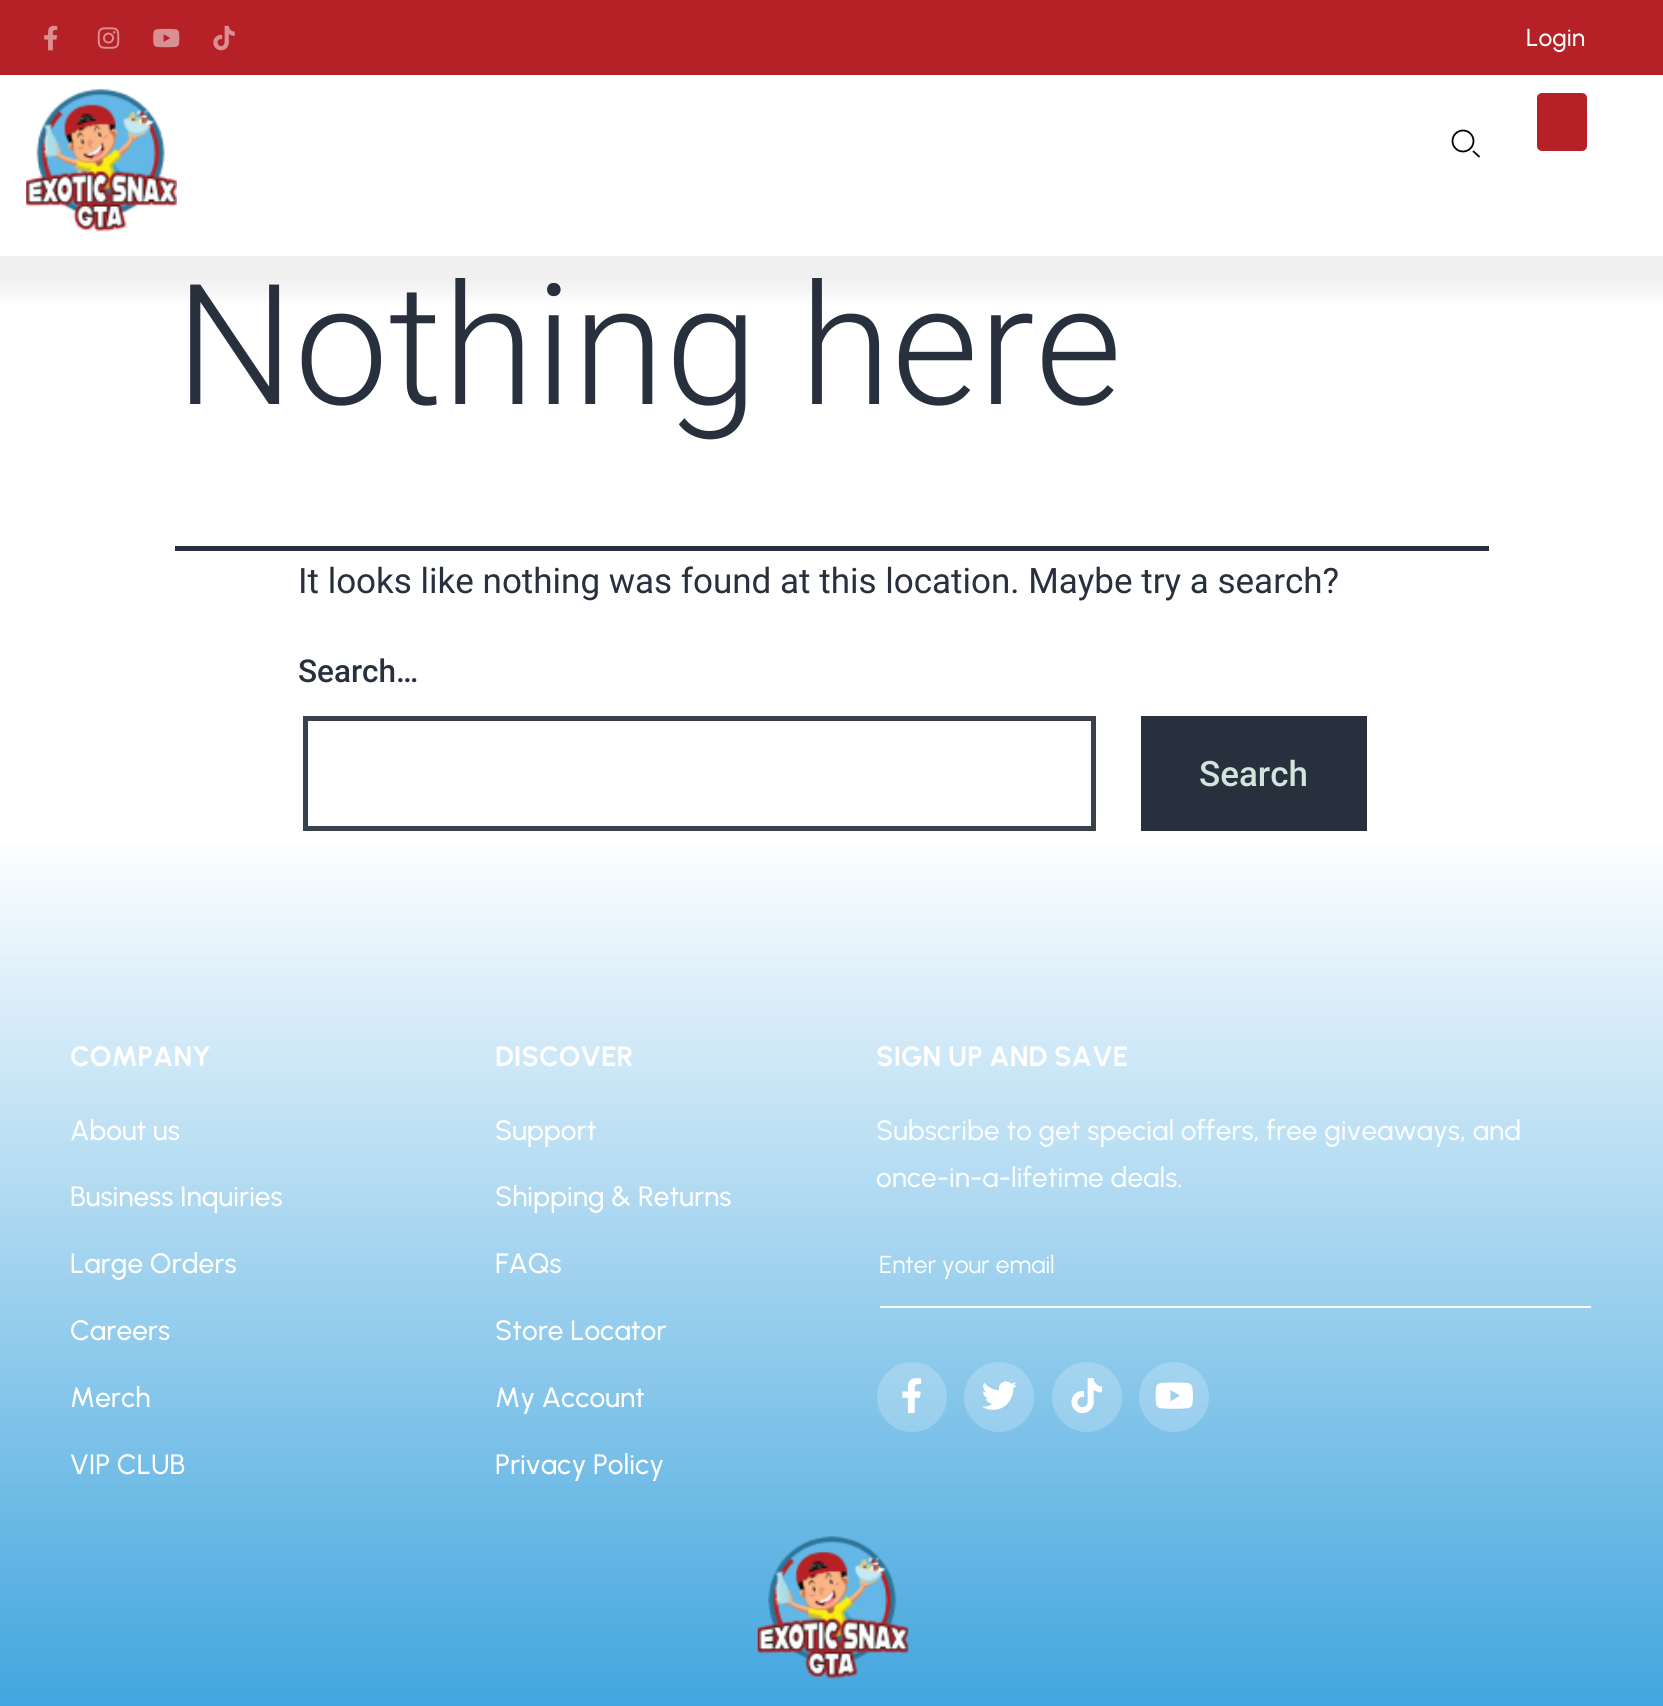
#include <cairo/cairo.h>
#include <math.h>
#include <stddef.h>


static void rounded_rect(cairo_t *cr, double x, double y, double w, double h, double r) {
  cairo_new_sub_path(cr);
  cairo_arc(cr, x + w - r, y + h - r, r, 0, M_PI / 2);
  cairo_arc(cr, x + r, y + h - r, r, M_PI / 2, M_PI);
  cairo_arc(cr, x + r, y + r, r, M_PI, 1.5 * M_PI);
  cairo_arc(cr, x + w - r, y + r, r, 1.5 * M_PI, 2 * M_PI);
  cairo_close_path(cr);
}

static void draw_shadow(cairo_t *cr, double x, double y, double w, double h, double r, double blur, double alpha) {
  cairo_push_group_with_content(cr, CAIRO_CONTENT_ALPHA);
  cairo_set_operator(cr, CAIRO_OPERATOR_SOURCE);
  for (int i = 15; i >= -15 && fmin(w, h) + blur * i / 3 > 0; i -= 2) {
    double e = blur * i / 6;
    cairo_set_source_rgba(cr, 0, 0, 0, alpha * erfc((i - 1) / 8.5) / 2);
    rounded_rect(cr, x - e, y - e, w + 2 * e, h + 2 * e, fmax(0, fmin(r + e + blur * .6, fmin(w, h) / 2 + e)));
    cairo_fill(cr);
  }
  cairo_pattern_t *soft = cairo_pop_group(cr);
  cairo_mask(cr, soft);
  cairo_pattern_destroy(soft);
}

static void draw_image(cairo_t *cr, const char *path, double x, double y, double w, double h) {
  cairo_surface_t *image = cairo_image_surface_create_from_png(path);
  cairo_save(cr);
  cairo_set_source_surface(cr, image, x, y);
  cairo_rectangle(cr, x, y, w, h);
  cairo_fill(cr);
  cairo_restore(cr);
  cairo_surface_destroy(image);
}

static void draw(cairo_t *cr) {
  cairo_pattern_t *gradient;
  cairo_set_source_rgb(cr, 1, 1, 1);
  cairo_paint(cr);
  cairo_set_source_rgb(cr, 181 / 255.0, 33 / 255.0, 39 / 255.0);
  cairo_rectangle(cr, 0, 0, 1663, 75);
  cairo_fill(cr);
  draw_image(cr, "images/1.png", 44, 25, 14, 26);
  draw_image(cr, "images/2.png", 97, 27, 23, 22);
  draw_image(cr, "images/3.png", 153, 28, 27, 20);
  draw_image(cr, "images/4.png", 213, 25, 22, 26);
  cairo_save(cr);
  cairo_set_fill_rule(cr, CAIRO_FILL_RULE_EVEN_ODD);
  cairo_new_path(cr);
  cairo_move_to(cr, 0, 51);
  cairo_line_to(cr, 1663, 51);
  cairo_line_to(cr, 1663, 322);
  cairo_line_to(cr, 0, 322);
  cairo_close_path(cr);
  cairo_move_to(cr, 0, 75);
  cairo_line_to(cr, 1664, 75);
  cairo_line_to(cr, 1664, 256);
  cairo_line_to(cr, 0, 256);
  cairo_close_path(cr);
  cairo_clip(cr);
  cairo_set_source_rgb(cr, 0, 0, 0);
  draw_shadow(cr, -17, 79, 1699, 215, 0, 9, 0.06);
  cairo_restore(cr);
  cairo_set_source_rgba(cr, 1, 1, 1, 0.71);
  cairo_rectangle(cr, 0, 255, 1663, 1);
  cairo_fill(cr);
  draw_image(cr, "images/5.png", 26, 88, 151, 144);
  cairo_arc(cr, 1463, 141, 10.5, 0, 2 * M_PI);
  cairo_set_source_rgb(cr, 0, 0, 0);
  cairo_set_line_width(cr, 1.8);
  cairo_stroke(cr);
  cairo_new_path(cr);
  cairo_move_to(cr, 1479, 156.5);
  cairo_line_to(cr, 1473.5, 151.5);
  cairo_set_line_cap(cr, CAIRO_LINE_CAP_ROUND);
  cairo_stroke(cr);
  cairo_set_source_rgb(cr, 181 / 255.0, 33 / 255.0, 39 / 255.0);
  rounded_rect(cr, 1537, 93, 50, 58, 5);
  cairo_fill(cr);
  cairo_set_source_rgb(cr, 40 / 255.0, 48 / 255.0, 61 / 255.0);
  cairo_rectangle(cr, 175, 546, 1314, 5);
  cairo_fill(cr);
  cairo_rectangle(cr, 305.5, 718.5, 788, 110);
  cairo_set_source_rgb(cr, 57 / 255.0, 65 / 255.0, 77 / 255.0);
  cairo_set_line_width(cr, 5);
  cairo_set_line_cap(cr, CAIRO_LINE_CAP_BUTT);
  cairo_stroke(cr);
  cairo_set_source_rgb(cr, 40 / 255.0, 48 / 255.0, 61 / 255.0);
  cairo_rectangle(cr, 1141, 716, 226, 115);
  cairo_fill(cr);
  gradient = cairo_pattern_create_linear(832, 831, 832, 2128);
  cairo_pattern_add_color_stop_rgba(gradient, 0, 1, 1, 1, 1);
  cairo_pattern_add_color_stop_rgba(gradient, 0.75, 45 / 255.0, 156 / 255.0, 219 / 255.0, 1);
  cairo_set_source(cr, gradient);
  cairo_pattern_destroy(gradient);
  cairo_rectangle(cr, 0, 843, 1663, 863);
  cairo_fill(cr);
  cairo_set_source_rgb(cr, 1, 1, 1);
  cairo_rectangle(cr, 880, 1306, 711, 2);
  cairo_fill(cr);
  cairo_set_source_rgba(cr, 1, 1, 1, 0.21);
  cairo_arc(cr, 912, 1397, 35, 0, 2 * M_PI);
  cairo_fill(cr);
  draw_image(cr, "images/6.png", 902, 1378, 20, 36);
  cairo_arc(cr, 999, 1397, 35, 0, 2 * M_PI);
  cairo_fill(cr);
  draw_image(cr, "images/7.png", 982, 1381, 35, 29);
  cairo_arc(cr, 1087, 1397, 35, 0, 2 * M_PI);
  cairo_fill(cr);
  draw_image(cr, "images/8.png", 1071, 1378, 32, 36);
  cairo_arc(cr, 1174, 1397, 35, 0, 2 * M_PI);
  cairo_fill(cr);
  draw_image(cr, "images/9.png", 1155, 1382, 38, 27);
  draw_image(cr, "images/10.png", 757, 1536, 152, 143);
  cairo_select_font_face(cr, "Urbanist Medium", CAIRO_FONT_SLANT_NORMAL, CAIRO_FONT_WEIGHT_NORMAL);
  cairo_set_font_size(cr, 24.5);
  cairo_set_source_rgb(cr, 1, 1, 1);
  cairo_move_to(cr, 1526, 46);
  cairo_show_text(cr, "Login");
  cairo_select_font_face(cr, "Roboto Light", CAIRO_FONT_SLANT_NORMAL, CAIRO_FONT_WEIGHT_NORMAL);
  cairo_set_font_size(cr, 168);
  cairo_set_source_rgb(cr, 40 / 255.0, 48 / 255.0, 61 / 255.0);
  cairo_move_to(cr, 175, 404);
  cairo_show_text(cr, "Nothing here");
  cairo_select_font_face(cr, "Roboto", CAIRO_FONT_SLANT_NORMAL, CAIRO_FONT_WEIGHT_NORMAL);
  cairo_set_font_size(cr, 35);
  cairo_move_to(cr, 298, 593);
  cairo_show_text(cr, "It looks like nothing was found at this location. Maybe try a search?");
  cairo_select_font_face(cr, "Roboto Medium", CAIRO_FONT_SLANT_NORMAL, CAIRO_FONT_WEIGHT_NORMAL);
  cairo_set_font_size(cr, 31.5);
  cairo_move_to(cr, 298, 682);
  cairo_show_text(cr, "Search…");
  cairo_set_font_size(cr, 35);
  cairo_set_source_rgb(cr, 209 / 255.0, 228 / 255.0, 221 / 255.0);
  cairo_move_to(cr, 1199, 786);
  cairo_show_text(cr, "Search");
  cairo_select_font_face(cr, "Urbanist", CAIRO_FONT_SLANT_NORMAL, CAIRO_FONT_WEIGHT_BOLD);
  cairo_set_font_size(cr, 28);
  cairo_set_source_rgb(cr, 1, 1, 1);
  cairo_move_to(cr, 70, 1066);
  cairo_show_text(cr, "COMPANY");
  cairo_select_font_face(cr, "Urbanist Medium", CAIRO_FONT_SLANT_NORMAL, CAIRO_FONT_WEIGHT_NORMAL);
  cairo_move_to(cr, 70, 1140);
  cairo_show_text(cr, "About us");
  cairo_move_to(cr, 70, 1206);
  cairo_show_text(cr, "Business Inquiries");
  cairo_move_to(cr, 70, 1273);
  cairo_show_text(cr, "Large Orders");
  cairo_move_to(cr, 70, 1340);
  cairo_show_text(cr, "Careers");
  cairo_move_to(cr, 70, 1407);
  cairo_show_text(cr, "Merch");
  cairo_move_to(cr, 70, 1474);
  cairo_show_text(cr, "VIP CLUB");
  cairo_select_font_face(cr, "Urbanist", CAIRO_FONT_SLANT_NORMAL, CAIRO_FONT_WEIGHT_BOLD);
  cairo_move_to(cr, 495, 1066);
  cairo_show_text(cr, "DISCOVER");
  cairo_select_font_face(cr, "Urbanist Medium", CAIRO_FONT_SLANT_NORMAL, CAIRO_FONT_WEIGHT_NORMAL);
  cairo_move_to(cr, 495, 1140);
  cairo_show_text(cr, "Support");
  cairo_move_to(cr, 495, 1206);
  cairo_show_text(cr, "Shipping & Returns");
  cairo_move_to(cr, 495, 1273);
  cairo_show_text(cr, "FAQs");
  cairo_move_to(cr, 495, 1340);
  cairo_show_text(cr, "Store Locator");
  cairo_move_to(cr, 495, 1407);
  cairo_show_text(cr, "My Account");
  cairo_move_to(cr, 495, 1474);
  cairo_show_text(cr, "Privacy Policy");
  cairo_select_font_face(cr, "Urbanist", CAIRO_FONT_SLANT_NORMAL, CAIRO_FONT_WEIGHT_BOLD);
  cairo_move_to(cr, 876, 1066);
  cairo_show_text(cr, "SIGN UP AND SAVE");
  cairo_select_font_face(cr, "Urbanist Medium", CAIRO_FONT_SLANT_NORMAL, CAIRO_FONT_WEIGHT_NORMAL);
  cairo_set_source_rgb(cr, 247 / 255.0, 252 / 255.0, 1);
  cairo_move_to(cr, 876, 1140);
  cairo_show_text(cr, "Subscribe to get special offers, free giveaways, and");
  cairo_move_to(cr, 876, 1187);
  cairo_show_text(cr, "once-in-a-lifetime deals.");
  cairo_select_font_face(cr, "Urbanist", CAIRO_FONT_SLANT_NORMAL, CAIRO_FONT_WEIGHT_NORMAL);
  cairo_set_font_size(cr, 24.5);
  cairo_set_source_rgb(cr, 1, 1, 1);
  cairo_move_to(cr, 879, 1273);
  cairo_show_text(cr, "Enter your email");
}

int main(void) {
  cairo_surface_t *surface = cairo_image_surface_create(CAIRO_FORMAT_RGB24, 1663, 1706);
  cairo_t *cr = cairo_create(surface);
  cairo_font_options_t *options = cairo_font_options_create();
  cairo_font_options_set_hint_metrics(options, CAIRO_HINT_METRICS_OFF);
  cairo_font_options_set_hint_style(options, CAIRO_HINT_STYLE_NONE);
  cairo_set_font_options(cr, options);
  cairo_set_miter_limit(cr, 4);
  draw(cr);
  cairo_surface_write_to_png(surface, "out.png");
  cairo_font_options_destroy(options);
  cairo_destroy(cr);
  cairo_surface_destroy(surface);
  return 0;
}
